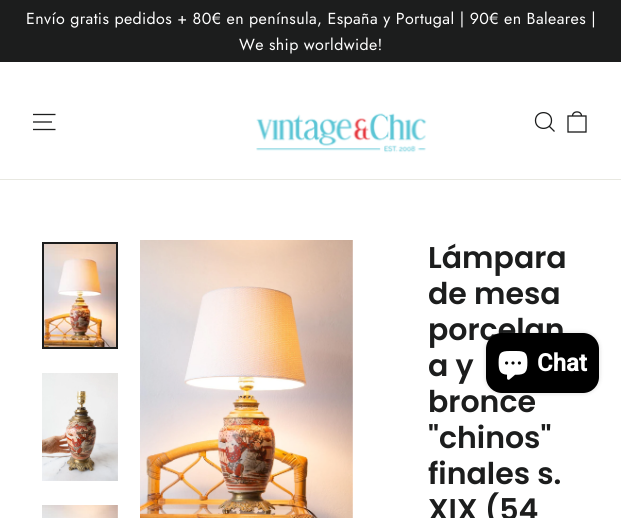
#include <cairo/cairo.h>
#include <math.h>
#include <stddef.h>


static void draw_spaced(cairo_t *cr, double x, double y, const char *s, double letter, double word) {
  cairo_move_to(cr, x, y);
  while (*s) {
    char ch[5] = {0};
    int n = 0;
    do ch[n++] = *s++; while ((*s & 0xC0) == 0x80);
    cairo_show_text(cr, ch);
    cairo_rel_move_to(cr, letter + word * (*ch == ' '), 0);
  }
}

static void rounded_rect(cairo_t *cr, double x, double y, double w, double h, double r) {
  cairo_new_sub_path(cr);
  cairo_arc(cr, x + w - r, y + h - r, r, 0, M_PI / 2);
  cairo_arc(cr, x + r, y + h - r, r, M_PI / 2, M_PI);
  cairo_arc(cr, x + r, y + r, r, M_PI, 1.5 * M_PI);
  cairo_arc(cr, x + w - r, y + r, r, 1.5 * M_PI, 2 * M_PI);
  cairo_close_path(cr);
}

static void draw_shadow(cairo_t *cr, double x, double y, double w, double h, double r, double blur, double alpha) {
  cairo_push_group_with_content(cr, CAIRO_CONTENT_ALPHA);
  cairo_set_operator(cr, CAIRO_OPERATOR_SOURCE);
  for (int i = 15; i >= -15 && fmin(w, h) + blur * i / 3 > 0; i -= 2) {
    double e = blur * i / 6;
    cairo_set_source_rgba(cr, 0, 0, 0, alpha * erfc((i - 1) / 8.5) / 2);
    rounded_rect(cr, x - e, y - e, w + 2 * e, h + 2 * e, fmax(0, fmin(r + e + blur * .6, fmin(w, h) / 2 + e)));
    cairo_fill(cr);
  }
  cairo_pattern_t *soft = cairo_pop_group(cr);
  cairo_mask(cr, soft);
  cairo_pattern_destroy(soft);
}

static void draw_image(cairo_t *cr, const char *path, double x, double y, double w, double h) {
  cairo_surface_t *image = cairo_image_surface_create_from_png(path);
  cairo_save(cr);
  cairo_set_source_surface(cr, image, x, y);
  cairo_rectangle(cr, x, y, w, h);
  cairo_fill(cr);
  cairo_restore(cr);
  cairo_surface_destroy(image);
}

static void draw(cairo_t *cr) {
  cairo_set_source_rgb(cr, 1, 1, 1);
  cairo_paint(cr);
  cairo_set_source_rgb(cr, 28 / 255.0, 29 / 255.0, 29 / 255.0);
  cairo_rectangle(cr, 0, 0, 621, 62);
  cairo_fill(cr);
  cairo_set_source_rgb(cr, 232 / 255.0, 232 / 255.0, 225 / 255.0);
  cairo_rectangle(cr, 0, 179, 621, 1);
  cairo_fill(cr);
  cairo_new_path(cr);
  cairo_move_to(cr, 33, 114.5);
  cairo_line_to(cr, 55.5, 114.5);
  cairo_move_to(cr, 33, 122);
  cairo_line_to(cr, 52, 122);
  cairo_move_to(cr, 33, 129.5);
  cairo_line_to(cr, 55.5, 129.5);
  cairo_set_source_rgb(cr, 28 / 255.0, 29 / 255.0, 29 / 255.0);
  cairo_set_line_width(cr, 1.3);
  cairo_stroke(cr);
  draw_image(cr, "images/1.png", 256, 113, 171, 40);
  cairo_new_path(cr);
  cairo_move_to(cr, 551.5, 120.5);
  cairo_curve_to(cr, 551.5, 131, 535.5, 131, 535.5, 120.5);
  cairo_curve_to(cr, 535.5, 110, 551.5, 110, 551.5, 120.5);
  cairo_close_path(cr);
  cairo_move_to(cr, 554.5, 131.5);
  cairo_line_to(cr, 549.5, 126.5);
  cairo_stroke(cr);
  cairo_new_path(cr);
  cairo_move_to(cr, 568, 116);
  cairo_line_to(cr, 586, 116);
  cairo_line_to(cr, 586, 132);
  cairo_line_to(cr, 568, 132);
  cairo_close_path(cr);
  cairo_move_to(cr, 572.5, 116);
  cairo_curve_to(cr, 572.5, 110.5, 581.5, 110.5, 581.5, 116);
  cairo_stroke(cr);
  draw_image(cr, "images/2.png", 44, 244, 72, 103);
  cairo_rectangle(cr, 43, 243, 74, 105);
  cairo_set_line_width(cr, 2);
  cairo_stroke(cr);
  draw_image(cr, "images/3.png", 42, 373, 76, 108);
  draw_image(cr, "images/4.png", 42, 505, 76, 13);
  draw_image(cr, "images/5.png", 140, 240, 213, 278);
  cairo_set_source_rgb(cr, 0, 0, 0);
  draw_shadow(cr, 486, 333, 113, 60, 16, 2.5, 0.15);
  cairo_select_font_face(cr, "Jost", CAIRO_FONT_SLANT_NORMAL, CAIRO_FONT_WEIGHT_NORMAL);
  cairo_set_font_size(cr, 16);
  cairo_set_source_rgb(cr, 1, 1, 1);
  draw_spaced(cr, 26, 24, "Envío gratis pedidos + 80€ en península, España y Portugal | 90€ en Baleares |", 0.38, 0);
  draw_spaced(cr, 239, 50, "We ship worldwide!", 0.38, 0);
  cairo_select_font_face(cr, "Poppins SemiBold", CAIRO_FONT_SLANT_NORMAL, CAIRO_FONT_WEIGHT_NORMAL);
  cairo_set_font_size(cr, 30);
  cairo_set_source_rgb(cr, 28 / 255.0, 29 / 255.0, 29 / 255.0);
  cairo_move_to(cr, 428, 268);
  cairo_show_text(cr, "Lámpara");
  cairo_move_to(cr, 428, 304);
  cairo_show_text(cr, "de mesa");
  cairo_move_to(cr, 428, 340);
  cairo_show_text(cr, "porcelan");
  cairo_move_to(cr, 428, 376);
  cairo_show_text(cr, "a y");
  cairo_move_to(cr, 428, 412);
  cairo_show_text(cr, "bronce");
  cairo_move_to(cr, 428, 448);
  cairo_show_text(cr, "\"chinos\"");
  cairo_move_to(cr, 428, 484);
  cairo_show_text(cr, "finales s.");
  cairo_move_to(cr, 428, 520);
  cairo_show_text(cr, "XIX (54");
  cairo_set_source_rgb(cr, 0, 0, 0);
  rounded_rect(cr, 486, 333, 113, 60, 16);
  cairo_fill(cr);
  draw_image(cr, "images/6.png", 498, 351, 30, 29);
  cairo_select_font_face(cr, "Roboto", CAIRO_FONT_SLANT_NORMAL, CAIRO_FONT_WEIGHT_BOLD);
  cairo_set_font_size(cr, 24);
  cairo_set_source_rgb(cr, 1, 1, 1);
  cairo_move_to(cr, 537, 371);
  cairo_show_text(cr, "Chat");
}

int main(void) {
  cairo_surface_t *surface = cairo_image_surface_create(CAIRO_FORMAT_RGB24, 621, 518);
  cairo_t *cr = cairo_create(surface);
  cairo_font_options_t *options = cairo_font_options_create();
  cairo_font_options_set_hint_metrics(options, CAIRO_HINT_METRICS_OFF);
  cairo_font_options_set_hint_style(options, CAIRO_HINT_STYLE_NONE);
  cairo_set_font_options(cr, options);
  cairo_set_miter_limit(cr, 4);
  draw(cr);
  cairo_surface_write_to_png(surface, "out.png");
  cairo_font_options_destroy(options);
  cairo_destroy(cr);
  cairo_surface_destroy(surface);
  return 0;
}
